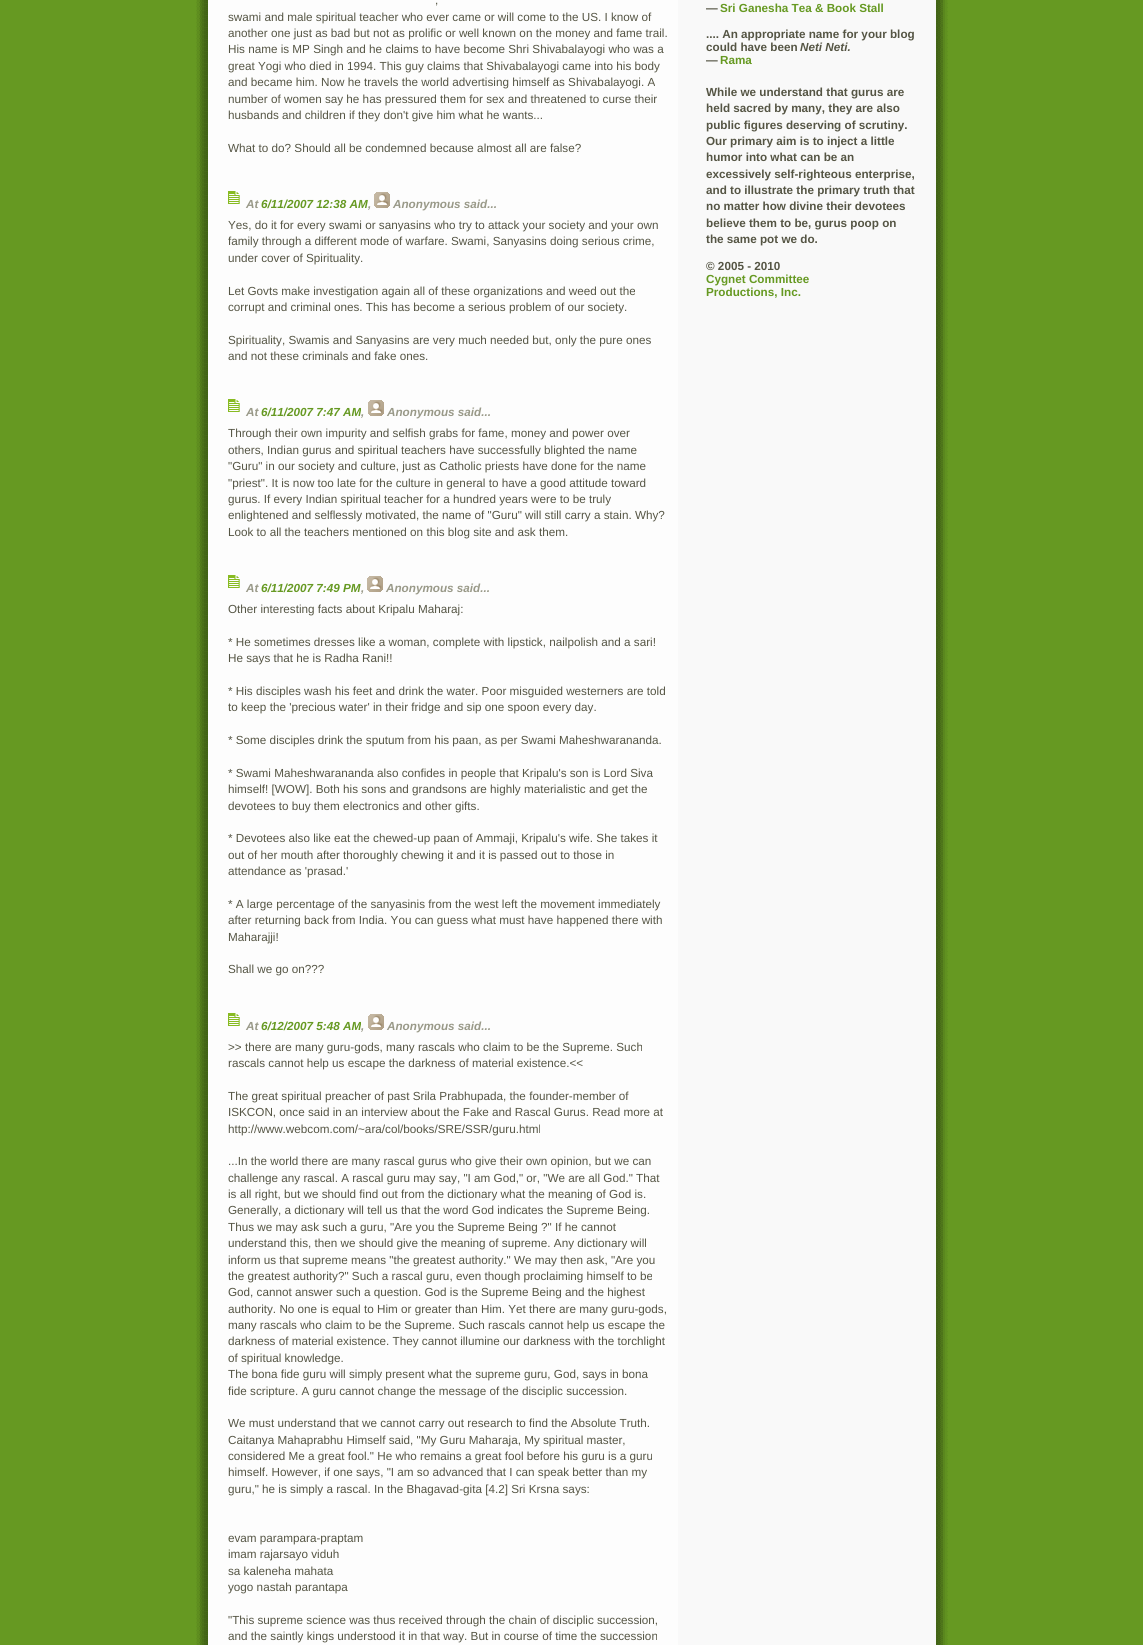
#include <cairo/cairo.h>
#include <math.h>
#include <stddef.h>


static void draw_image(cairo_t *cr, const char *path, double x, double y, double w, double h) {
  cairo_surface_t *image = cairo_image_surface_create_from_png(path);
  cairo_save(cr);
  cairo_set_source_surface(cr, image, x, y);
  cairo_rectangle(cr, x, y, w, h);
  cairo_fill(cr);
  cairo_restore(cr);
  cairo_surface_destroy(image);
}

static void draw(cairo_t *cr) {
  cairo_set_source_rgb(cr, 102 / 255.0, 153 / 255.0, 34 / 255.0);
  cairo_paint(cr);
  draw_image(cr, "images/1.png", 196, 0, 752, 1645);
  cairo_set_source_rgb(cr, 249 / 255.0, 249 / 255.0, 249 / 255.0);
  cairo_rectangle(cr, 678, 0, 258, 1645);
  cairo_fill(cr);
  draw_image(cr, "images/2.png", 228, 191, 12, 13);
  draw_image(cr, "images/3.png", 374, 192, 16, 16);
  draw_image(cr, "images/2.png", 228, 399, 12, 13);
  draw_image(cr, "images/3.png", 368, 400, 16, 16);
  draw_image(cr, "images/2.png", 228, 575, 12, 13);
  draw_image(cr, "images/3.png", 367, 576, 16, 16);
  draw_image(cr, "images/2.png", 228, 1013, 12, 13);
  draw_image(cr, "images/3.png", 368, 1014, 16, 16);
  cairo_select_font_face(cr, "Liberation Sans", CAIRO_FONT_SLANT_NORMAL, CAIRO_FONT_WEIGHT_NORMAL);
  cairo_set_font_size(cr, 11.7);
  cairo_set_source_rgb(cr, 85 / 255.0, 85 / 255.0, 68 / 255.0);
  cairo_move_to(cr, 435, 4);
  cairo_show_text(cr, ",");
  cairo_move_to(cr, 228, 21);
  cairo_show_text(cr, "swami and male spiritual teacher who ever came or will come to the US. I know of");
  cairo_move_to(cr, 228, 37);
  cairo_show_text(cr, "another one just as bad but not as prolific or well known on the money and fame trail.");
  cairo_move_to(cr, 228, 53);
  cairo_show_text(cr, "His name is MP Singh and he claims to have become Shri Shivabalayogi who was a");
  cairo_move_to(cr, 228, 70);
  cairo_show_text(cr, "great Yogi who died in 1994. This guy claims that Shivabalayogi came into his body");
  cairo_move_to(cr, 228, 86);
  cairo_show_text(cr, "and became him. Now he travels the world advertising himself as Shivabalayogi. A");
  cairo_move_to(cr, 228, 103);
  cairo_show_text(cr, "number of women say he has pressured them for sex and threatened to curse their");
  cairo_move_to(cr, 228, 119);
  cairo_show_text(cr, "husbands and children if they don't give him what he wants...");
  cairo_move_to(cr, 228, 152);
  cairo_show_text(cr, "What to do? Should all be condemned because almost all are false?");
  cairo_select_font_face(cr, "Liberation Sans", CAIRO_FONT_SLANT_ITALIC, CAIRO_FONT_WEIGHT_BOLD);
  cairo_set_source_rgb(cr, 153 / 255.0, 153 / 255.0, 136 / 255.0);
  cairo_move_to(cr, 246, 208);
  cairo_show_text(cr, "At");
  cairo_set_source_rgb(cr, 102 / 255.0, 153 / 255.0, 34 / 255.0);
  cairo_move_to(cr, 261, 208);
  cairo_show_text(cr, "6/11/2007 12:38 AM");
  cairo_set_source_rgb(cr, 153 / 255.0, 153 / 255.0, 136 / 255.0);
  cairo_move_to(cr, 368, 208);
  cairo_show_text(cr, ",");
  cairo_move_to(cr, 393, 208);
  cairo_show_text(cr, "Anonymous said...");
  cairo_select_font_face(cr, "Liberation Sans", CAIRO_FONT_SLANT_NORMAL, CAIRO_FONT_WEIGHT_NORMAL);
  cairo_set_source_rgb(cr, 85 / 255.0, 85 / 255.0, 68 / 255.0);
  cairo_move_to(cr, 228, 229);
  cairo_show_text(cr, "Yes, do it for every swami or sanyasins who try to attack your society and your own");
  cairo_move_to(cr, 228, 245);
  cairo_show_text(cr, "family through a different mode of warfare. Swami, Sanyasins doing serious crime,");
  cairo_move_to(cr, 228, 262);
  cairo_show_text(cr, "under cover of Spirituality.");
  cairo_move_to(cr, 228, 295);
  cairo_show_text(cr, "Let Govts make investigation again all of these organizations and weed out the");
  cairo_move_to(cr, 228, 311);
  cairo_show_text(cr, "corrupt and criminal ones. This has become a serious problem of our society.");
  cairo_move_to(cr, 228, 344);
  cairo_show_text(cr, "Spirituality, Swamis and Sanyasins are very much needed but, only the pure ones");
  cairo_move_to(cr, 228, 360);
  cairo_show_text(cr, "and not these criminals and fake ones.");
  cairo_select_font_face(cr, "Liberation Sans", CAIRO_FONT_SLANT_ITALIC, CAIRO_FONT_WEIGHT_BOLD);
  cairo_set_source_rgb(cr, 153 / 255.0, 153 / 255.0, 136 / 255.0);
  cairo_move_to(cr, 246, 416);
  cairo_show_text(cr, "At");
  cairo_set_source_rgb(cr, 102 / 255.0, 153 / 255.0, 34 / 255.0);
  cairo_move_to(cr, 261, 416);
  cairo_show_text(cr, "6/11/2007 7:47 AM");
  cairo_set_source_rgb(cr, 153 / 255.0, 153 / 255.0, 136 / 255.0);
  cairo_move_to(cr, 361, 416);
  cairo_show_text(cr, ",");
  cairo_move_to(cr, 387, 416);
  cairo_show_text(cr, "Anonymous said...");
  cairo_select_font_face(cr, "Liberation Sans", CAIRO_FONT_SLANT_NORMAL, CAIRO_FONT_WEIGHT_NORMAL);
  cairo_set_source_rgb(cr, 85 / 255.0, 85 / 255.0, 68 / 255.0);
  cairo_move_to(cr, 228, 437);
  cairo_show_text(cr, "Through their own impurity and selfish grabs for fame, money and power over");
  cairo_move_to(cr, 228, 454);
  cairo_show_text(cr, "others, Indian gurus and spiritual teachers have successfully blighted the name");
  cairo_move_to(cr, 228, 470);
  cairo_show_text(cr, "\"Guru\" in our society and culture, just as Catholic priests have done for the name");
  cairo_move_to(cr, 228, 487);
  cairo_show_text(cr, "\"priest\". It is now too late for the culture in general to have a good attitude toward");
  cairo_move_to(cr, 228, 503);
  cairo_show_text(cr, "gurus. If every Indian spiritual teacher for a hundred years were to be truly");
  cairo_move_to(cr, 228, 519);
  cairo_show_text(cr, "enlightened and selflessly motivated, the name of \"Guru\" will still carry a stain. Why?");
  cairo_move_to(cr, 228, 536);
  cairo_show_text(cr, "Look to all the teachers mentioned on this blog site and ask them.");
  cairo_select_font_face(cr, "Liberation Sans", CAIRO_FONT_SLANT_ITALIC, CAIRO_FONT_WEIGHT_BOLD);
  cairo_set_source_rgb(cr, 153 / 255.0, 153 / 255.0, 136 / 255.0);
  cairo_move_to(cr, 246, 592);
  cairo_show_text(cr, "At");
  cairo_set_source_rgb(cr, 102 / 255.0, 153 / 255.0, 34 / 255.0);
  cairo_move_to(cr, 261, 592);
  cairo_show_text(cr, "6/11/2007 7:49 PM");
  cairo_set_source_rgb(cr, 153 / 255.0, 153 / 255.0, 136 / 255.0);
  cairo_move_to(cr, 361, 592);
  cairo_show_text(cr, ",");
  cairo_move_to(cr, 386, 592);
  cairo_show_text(cr, "Anonymous said...");
  cairo_select_font_face(cr, "Liberation Sans", CAIRO_FONT_SLANT_NORMAL, CAIRO_FONT_WEIGHT_NORMAL);
  cairo_set_source_rgb(cr, 85 / 255.0, 85 / 255.0, 68 / 255.0);
  cairo_move_to(cr, 228, 613);
  cairo_show_text(cr, "Other interesting facts about Kripalu Maharaj:");
  cairo_move_to(cr, 228, 646);
  cairo_show_text(cr, "* He sometimes dresses like a woman, complete with lipstick, nailpolish and a sari!");
  cairo_move_to(cr, 228, 662);
  cairo_show_text(cr, "He says that he is Radha Rani!!");
  cairo_move_to(cr, 228, 695);
  cairo_show_text(cr, "* His disciples wash his feet and drink the water. Poor misguided westerners are told");
  cairo_move_to(cr, 228, 711);
  cairo_show_text(cr, "to keep the 'precious water' in their fridge and sip one spoon every day.");
  cairo_move_to(cr, 228, 744);
  cairo_show_text(cr, "* Some disciples drink the sputum from his paan, as per Swami Maheshwarananda.");
  cairo_move_to(cr, 228, 777);
  cairo_show_text(cr, "* Swami Maheshwarananda also confides in people that Kripalu's son is Lord Siva");
  cairo_move_to(cr, 228, 793);
  cairo_show_text(cr, "himself! [WOW]. Both his sons and grandsons are highly materialistic and get the");
  cairo_move_to(cr, 228, 810);
  cairo_show_text(cr, "devotees to buy them electronics and other gifts.");
  cairo_move_to(cr, 228, 842);
  cairo_show_text(cr, "* Devotees also like eat the chewed-up paan of Ammaji, Kripalu's wife. She takes it");
  cairo_move_to(cr, 228, 859);
  cairo_show_text(cr, "out of her mouth after thoroughly chewing it and it is passed out to those in");
  cairo_move_to(cr, 228, 875);
  cairo_show_text(cr, "attendance as 'prasad.'");
  cairo_move_to(cr, 228, 908);
  cairo_show_text(cr, "* A large percentage of the sanyasinis from the west left the movement immediately");
  cairo_move_to(cr, 228, 924);
  cairo_show_text(cr, "after returning back from India. You can guess what must have happened there with");
  cairo_move_to(cr, 228, 941);
  cairo_show_text(cr, "Maharajji!");
  cairo_move_to(cr, 228, 973);
  cairo_show_text(cr, "Shall we go on?\077?");
  cairo_select_font_face(cr, "Liberation Sans", CAIRO_FONT_SLANT_ITALIC, CAIRO_FONT_WEIGHT_BOLD);
  cairo_set_source_rgb(cr, 153 / 255.0, 153 / 255.0, 136 / 255.0);
  cairo_move_to(cr, 246, 1030);
  cairo_show_text(cr, "At");
  cairo_set_source_rgb(cr, 102 / 255.0, 153 / 255.0, 34 / 255.0);
  cairo_move_to(cr, 261, 1030);
  cairo_show_text(cr, "6/12/2007 5:48 AM");
  cairo_set_source_rgb(cr, 153 / 255.0, 153 / 255.0, 136 / 255.0);
  cairo_move_to(cr, 361, 1030);
  cairo_show_text(cr, ",");
  cairo_move_to(cr, 387, 1030);
  cairo_show_text(cr, "Anonymous said...");
  cairo_select_font_face(cr, "Liberation Sans", CAIRO_FONT_SLANT_NORMAL, CAIRO_FONT_WEIGHT_NORMAL);
  cairo_set_source_rgb(cr, 85 / 255.0, 85 / 255.0, 68 / 255.0);
  cairo_move_to(cr, 228, 1051);
  cairo_show_text(cr, ">> there are many guru-gods, many rascals who claim to be the Supreme. Such");
  cairo_move_to(cr, 228, 1067);
  cairo_show_text(cr, "rascals cannot help us escape the darkness of material existence.<<");
  cairo_move_to(cr, 228, 1100);
  cairo_show_text(cr, "The great spiritual preacher of past Srila Prabhupada, the founder-member of");
  cairo_move_to(cr, 228, 1116);
  cairo_show_text(cr, "ISKCON, once said in an interview about the Fake and Rascal Gurus. Read more at");
  cairo_move_to(cr, 228, 1133);
  cairo_show_text(cr, "http://www.webcom.com/~ara/col/books/SRE/SSR/guru.html");
  cairo_move_to(cr, 228, 1165);
  cairo_show_text(cr, "...In the world there are many rascal gurus who give their own opinion, but we can");
  cairo_move_to(cr, 228, 1182);
  cairo_show_text(cr, "challenge any rascal. A rascal guru may say, \"I am God,\" or, \"We are all God.\" That");
  cairo_move_to(cr, 228, 1198);
  cairo_show_text(cr, "is all right, but we should find out from the dictionary what the meaning of God is.");
  cairo_move_to(cr, 228, 1214);
  cairo_show_text(cr, "Generally, a dictionary will tell us that the word God indicates the Supreme Being.");
  cairo_move_to(cr, 228, 1231);
  cairo_show_text(cr, "Thus we may ask such a guru, \"Are you the Supreme Being ?\" If he cannot");
  cairo_move_to(cr, 228, 1247);
  cairo_show_text(cr, "understand this, then we should give the meaning of supreme. Any dictionary will");
  cairo_move_to(cr, 228, 1264);
  cairo_show_text(cr, "inform us that supreme means \"the greatest authority.\" We may then ask, \"Are you");
  cairo_move_to(cr, 228, 1280);
  cairo_show_text(cr, "the greatest authority?\" Such a rascal guru, even though proclaiming himself to be");
  cairo_move_to(cr, 228, 1296);
  cairo_show_text(cr, "God, cannot answer such a question. God is the Supreme Being and the highest");
  cairo_move_to(cr, 228, 1313);
  cairo_show_text(cr, "authority. No one is equal to Him or greater than Him. Yet there are many guru-gods,");
  cairo_move_to(cr, 228, 1329);
  cairo_show_text(cr, "many rascals who claim to be the Supreme. Such rascals cannot help us escape the");
  cairo_move_to(cr, 228, 1345);
  cairo_show_text(cr, "darkness of material existence. They cannot illumine our darkness with the torchlight");
  cairo_move_to(cr, 228, 1362);
  cairo_show_text(cr, "of spiritual knowledge.");
  cairo_move_to(cr, 228, 1378);
  cairo_show_text(cr, "The bona fide guru will simply present what the supreme guru, God, says in bona");
  cairo_move_to(cr, 228, 1395);
  cairo_show_text(cr, "fide scripture. A guru cannot change the message of the disciplic succession.");
  cairo_move_to(cr, 228, 1427);
  cairo_show_text(cr, "We must understand that we cannot carry out research to find the Absolute Truth.");
  cairo_move_to(cr, 228, 1444);
  cairo_show_text(cr, "Caitanya Mahaprabhu Himself said, \"My Guru Maharaja, My spiritual master,");
  cairo_move_to(cr, 228, 1460);
  cairo_show_text(cr, "considered Me a great fool.\" He who remains a great fool before his guru is a guru");
  cairo_move_to(cr, 228, 1476);
  cairo_show_text(cr, "himself. However, if one says, \"I am so advanced that I can speak better than my");
  cairo_move_to(cr, 228, 1493);
  cairo_show_text(cr, "guru,\" he is simply a rascal. In the Bhagavad-gita [4.2] Sri Krsna says:");
  cairo_move_to(cr, 228, 1542);
  cairo_show_text(cr, "evam parampara-praptam");
  cairo_move_to(cr, 228, 1558);
  cairo_show_text(cr, "imam rajarsayo viduh");
  cairo_move_to(cr, 228, 1575);
  cairo_show_text(cr, "sa kaleneha mahata");
  cairo_move_to(cr, 228, 1591);
  cairo_show_text(cr, "yogo nastah parantapa");
  cairo_move_to(cr, 228, 1624);
  cairo_show_text(cr, "\"This supreme science was thus received through the chain of disciplic succession,");
  cairo_move_to(cr, 228, 1640);
  cairo_show_text(cr, "and the saintly kings understood it in that way. But in course of time the succession");
  cairo_select_font_face(cr, "Liberation Sans", CAIRO_FONT_SLANT_NORMAL, CAIRO_FONT_WEIGHT_BOLD);
  cairo_move_to(cr, 706, 12);
  cairo_show_text(cr, "—");
  cairo_set_source_rgb(cr, 102 / 255.0, 153 / 255.0, 34 / 255.0);
  cairo_move_to(cr, 720, 12);
  cairo_show_text(cr, "Sri Ganesha Tea & Book Stall");
  cairo_set_source_rgb(cr, 85 / 255.0, 85 / 255.0, 68 / 255.0);
  cairo_move_to(cr, 706, 38);
  cairo_show_text(cr, ".... An appropriate name for your blog");
  cairo_move_to(cr, 706, 51);
  cairo_show_text(cr, "could have been");
  cairo_select_font_face(cr, "Liberation Sans", CAIRO_FONT_SLANT_ITALIC, CAIRO_FONT_WEIGHT_BOLD);
  cairo_move_to(cr, 800, 51);
  cairo_show_text(cr, "Neti Neti.");
  cairo_select_font_face(cr, "Liberation Sans", CAIRO_FONT_SLANT_NORMAL, CAIRO_FONT_WEIGHT_BOLD);
  cairo_move_to(cr, 706, 64);
  cairo_show_text(cr, "—");
  cairo_set_source_rgb(cr, 102 / 255.0, 153 / 255.0, 34 / 255.0);
  cairo_move_to(cr, 720, 64);
  cairo_show_text(cr, "Rama");
  cairo_set_source_rgb(cr, 85 / 255.0, 85 / 255.0, 68 / 255.0);
  cairo_move_to(cr, 706, 96);
  cairo_show_text(cr, "While we understand that gurus are");
  cairo_move_to(cr, 706, 112);
  cairo_show_text(cr, "held sacred by many, they are also");
  cairo_move_to(cr, 706, 129);
  cairo_show_text(cr, "public figures deserving of scrutiny.");
  cairo_move_to(cr, 706, 145);
  cairo_show_text(cr, "Our primary aim is to inject a little");
  cairo_move_to(cr, 706, 161);
  cairo_show_text(cr, "humor into what can be an");
  cairo_move_to(cr, 706, 178);
  cairo_show_text(cr, "excessively self-righteous enterprise,");
  cairo_move_to(cr, 706, 194);
  cairo_show_text(cr, "and to illustrate the primary truth that");
  cairo_move_to(cr, 706, 210);
  cairo_show_text(cr, "no matter how divine their devotees");
  cairo_move_to(cr, 706, 227);
  cairo_show_text(cr, "believe them to be, gurus poop on");
  cairo_move_to(cr, 706, 243);
  cairo_show_text(cr, "the same pot we do.");
  cairo_move_to(cr, 706, 270);
  cairo_show_text(cr, "© 2005 - 2010");
  cairo_set_source_rgb(cr, 102 / 255.0, 153 / 255.0, 34 / 255.0);
  cairo_move_to(cr, 706, 283);
  cairo_show_text(cr, "Cygnet Committee");
  cairo_move_to(cr, 706, 296);
  cairo_show_text(cr, "Productions, Inc.");
}

int main(void) {
  cairo_surface_t *surface = cairo_image_surface_create(CAIRO_FORMAT_RGB24, 1143, 1645);
  cairo_t *cr = cairo_create(surface);
  cairo_font_options_t *options = cairo_font_options_create();
  cairo_font_options_set_hint_metrics(options, CAIRO_HINT_METRICS_OFF);
  cairo_font_options_set_hint_style(options, CAIRO_HINT_STYLE_NONE);
  cairo_set_font_options(cr, options);
  cairo_set_miter_limit(cr, 4);
  draw(cr);
  cairo_surface_write_to_png(surface, "out.png");
  cairo_font_options_destroy(options);
  cairo_destroy(cr);
  cairo_surface_destroy(surface);
  return 0;
}
